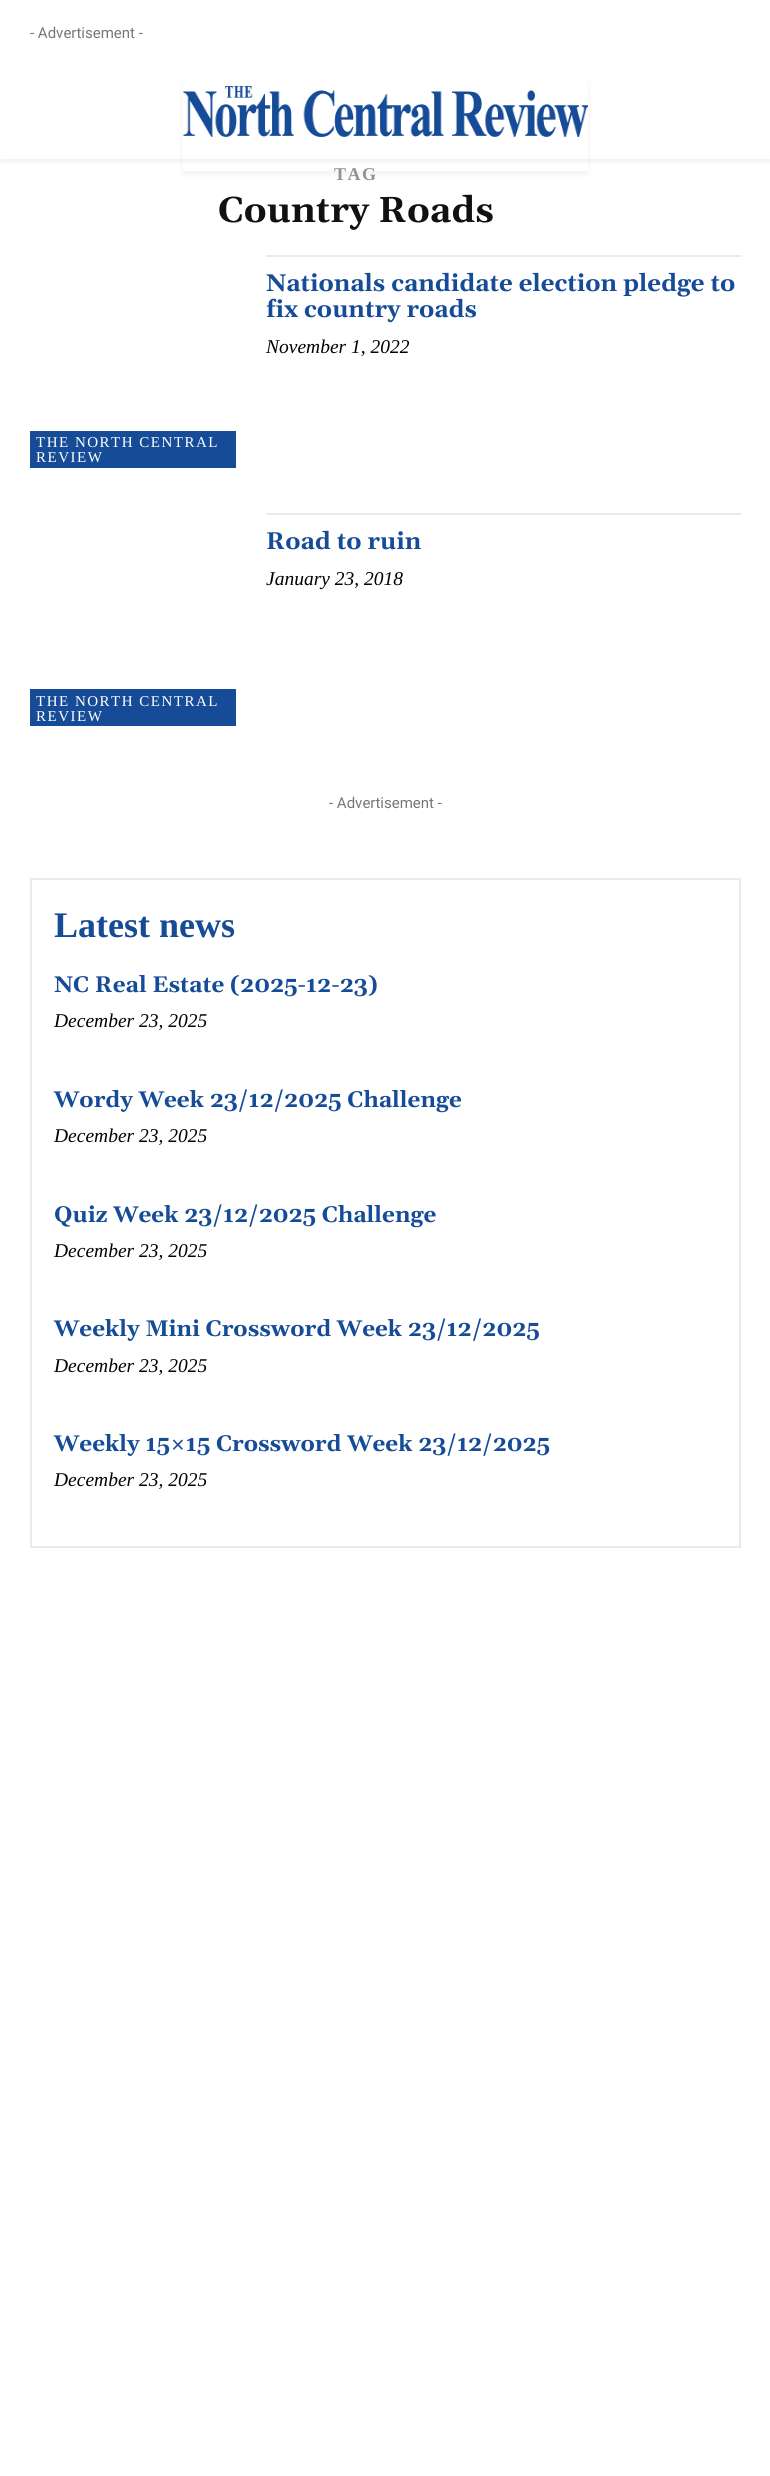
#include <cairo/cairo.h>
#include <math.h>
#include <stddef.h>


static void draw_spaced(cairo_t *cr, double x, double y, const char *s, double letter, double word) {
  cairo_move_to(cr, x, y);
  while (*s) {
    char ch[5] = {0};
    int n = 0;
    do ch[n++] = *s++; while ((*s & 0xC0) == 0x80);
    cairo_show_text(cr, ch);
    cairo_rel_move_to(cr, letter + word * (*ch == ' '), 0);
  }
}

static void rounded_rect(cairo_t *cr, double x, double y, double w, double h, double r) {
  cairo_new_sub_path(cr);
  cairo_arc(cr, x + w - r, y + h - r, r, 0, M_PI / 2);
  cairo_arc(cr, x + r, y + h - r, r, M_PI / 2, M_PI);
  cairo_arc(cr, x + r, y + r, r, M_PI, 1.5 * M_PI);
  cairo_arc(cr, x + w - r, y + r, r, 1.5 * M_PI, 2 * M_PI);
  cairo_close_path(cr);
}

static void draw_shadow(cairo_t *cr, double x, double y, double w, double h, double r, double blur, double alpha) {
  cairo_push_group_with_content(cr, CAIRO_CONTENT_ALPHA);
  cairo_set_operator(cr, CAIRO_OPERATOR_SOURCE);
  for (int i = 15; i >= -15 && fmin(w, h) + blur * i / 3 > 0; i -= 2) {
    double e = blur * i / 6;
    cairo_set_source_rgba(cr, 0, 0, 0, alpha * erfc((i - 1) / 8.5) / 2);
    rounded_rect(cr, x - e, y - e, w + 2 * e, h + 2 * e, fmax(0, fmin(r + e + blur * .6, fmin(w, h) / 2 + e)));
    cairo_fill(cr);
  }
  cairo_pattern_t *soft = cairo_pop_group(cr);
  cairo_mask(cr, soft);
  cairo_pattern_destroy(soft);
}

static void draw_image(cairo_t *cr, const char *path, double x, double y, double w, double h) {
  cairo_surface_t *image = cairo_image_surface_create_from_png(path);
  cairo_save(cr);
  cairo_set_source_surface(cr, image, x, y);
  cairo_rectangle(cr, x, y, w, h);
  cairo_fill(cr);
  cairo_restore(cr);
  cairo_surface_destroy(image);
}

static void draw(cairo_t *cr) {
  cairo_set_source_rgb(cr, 1, 1, 1);
  cairo_paint(cr);
  draw_image(cr, "images/1.png", 183, 86, 405, 51);
  cairo_save(cr);
  cairo_rectangle(cr, 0, 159, 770, 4);
  cairo_clip(cr);
  cairo_set_source_rgb(cr, 0, 0, 0);
  draw_shadow(cr, 0, 3, 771, 159, 0, 3, 0.06);
  cairo_restore(cr);
  cairo_save(cr);
  cairo_set_fill_rule(cr, CAIRO_FILL_RULE_EVEN_ODD);
  cairo_new_path(cr);
  cairo_move_to(cr, 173, 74);
  cairo_line_to(cr, 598, 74);
  cairo_line_to(cr, 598, 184);
  cairo_line_to(cr, 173, 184);
  cairo_close_path(cr);
  cairo_move_to(cr, 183, 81);
  cairo_line_to(cr, 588, 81);
  cairo_line_to(cr, 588, 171);
  cairo_line_to(cr, 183, 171);
  cairo_close_path(cr);
  cairo_clip(cr);
  cairo_set_source_rgb(cr, 0, 0, 0);
  draw_shadow(cr, 183, 84, 405, 90, 0, 3, 0.06);
  cairo_restore(cr);
  cairo_set_source_rgb(cr, 234 / 255.0, 234 / 255.0, 234 / 255.0);
  cairo_rectangle(cr, 266, 255, 475, 2);
  cairo_fill(cr);
  cairo_set_source_rgb(cr, 22 / 255.0, 76 / 255.0, 151 / 255.0);
  cairo_rectangle(cr, 30, 431, 206, 37);
  cairo_fill(cr);
  cairo_set_source_rgb(cr, 234 / 255.0, 234 / 255.0, 234 / 255.0);
  cairo_rectangle(cr, 266, 513, 475, 2);
  cairo_fill(cr);
  cairo_set_source_rgb(cr, 22 / 255.0, 76 / 255.0, 151 / 255.0);
  cairo_rectangle(cr, 30, 689, 206, 37);
  cairo_fill(cr);
  cairo_rectangle(cr, 31, 879, 709, 668);
  cairo_set_source_rgb(cr, 234 / 255.0, 234 / 255.0, 234 / 255.0);
  cairo_stroke(cr);
  cairo_select_font_face(cr, "Roboto", CAIRO_FONT_SLANT_NORMAL, CAIRO_FONT_WEIGHT_NORMAL);
  cairo_set_font_size(cr, 15);
  cairo_set_source_rgb(cr, 118 / 255.0, 118 / 255.0, 118 / 255.0);
  cairo_move_to(cr, 30, 38);
  cairo_show_text(cr, "- Advertisement -");
  cairo_select_font_face(cr, "Liberation Serif", CAIRO_FONT_SLANT_NORMAL, CAIRO_FONT_WEIGHT_BOLD);
  cairo_set_font_size(cr, 18);
  cairo_set_source_rgb(cr, 145 / 255.0, 145 / 255.0, 145 / 255.0);
  draw_spaced(cr, 334, 180, "TAG", 1.5, 0);
  cairo_select_font_face(cr, "Gelasio", CAIRO_FONT_SLANT_NORMAL, CAIRO_FONT_WEIGHT_BOLD);
  cairo_set_font_size(cr, 36);
  cairo_set_source_rgb(cr, 17 / 255.0, 17 / 255.0, 17 / 255.0);
  cairo_move_to(cr, 218, 222);
  cairo_show_text(cr, "Country Roads");
  cairo_set_font_size(cr, 24);
  cairo_set_source_rgb(cr, 22 / 255.0, 76 / 255.0, 151 / 255.0);
  cairo_move_to(cr, 266, 291);
  cairo_show_text(cr, "Nationals candidate election pledge to");
  cairo_move_to(cr, 266, 317);
  cairo_show_text(cr, "fix country roads");
  cairo_select_font_face(cr, "Liberation Serif", CAIRO_FONT_SLANT_ITALIC, CAIRO_FONT_WEIGHT_NORMAL);
  cairo_set_font_size(cr, 19.5);
  cairo_set_source_rgb(cr, 0, 0, 0);
  cairo_move_to(cr, 266, 353);
  cairo_show_text(cr, "November 1, 2022");
  cairo_select_font_face(cr, "Liberation Serif", CAIRO_FONT_SLANT_NORMAL, CAIRO_FONT_WEIGHT_NORMAL);
  cairo_set_font_size(cr, 15);
  cairo_set_source_rgb(cr, 1, 1, 1);
  draw_spaced(cr, 36, 447, "THE NORTH CENTRAL", 1.5, 0);
  draw_spaced(cr, 36, 462, "REVIEW", 1.5, 0);
  cairo_select_font_face(cr, "Gelasio", CAIRO_FONT_SLANT_NORMAL, CAIRO_FONT_WEIGHT_BOLD);
  cairo_set_font_size(cr, 24);
  cairo_set_source_rgb(cr, 22 / 255.0, 76 / 255.0, 151 / 255.0);
  cairo_move_to(cr, 266, 549);
  cairo_show_text(cr, "Road to ruin");
  cairo_select_font_face(cr, "Liberation Serif", CAIRO_FONT_SLANT_ITALIC, CAIRO_FONT_WEIGHT_NORMAL);
  cairo_set_font_size(cr, 19.5);
  cairo_set_source_rgb(cr, 0, 0, 0);
  cairo_move_to(cr, 266, 585);
  cairo_show_text(cr, "January 23, 2018");
  cairo_select_font_face(cr, "Liberation Serif", CAIRO_FONT_SLANT_NORMAL, CAIRO_FONT_WEIGHT_NORMAL);
  cairo_set_font_size(cr, 15);
  cairo_set_source_rgb(cr, 1, 1, 1);
  draw_spaced(cr, 36, 706, "THE NORTH CENTRAL", 1.5, 0);
  draw_spaced(cr, 36, 721, "REVIEW", 1.5, 0);
  cairo_select_font_face(cr, "Roboto", CAIRO_FONT_SLANT_NORMAL, CAIRO_FONT_WEIGHT_NORMAL);
  cairo_set_source_rgb(cr, 118 / 255.0, 118 / 255.0, 118 / 255.0);
  cairo_move_to(cr, 329, 808);
  cairo_show_text(cr, "- Advertisement -");
  cairo_select_font_face(cr, "Liberation Serif", CAIRO_FONT_SLANT_NORMAL, CAIRO_FONT_WEIGHT_BOLD);
  cairo_set_font_size(cr, 36);
  cairo_set_source_rgb(cr, 22 / 255.0, 76 / 255.0, 151 / 255.0);
  cairo_move_to(cr, 54, 937);
  cairo_show_text(cr, "Latest news");
  cairo_select_font_face(cr, "Gelasio", CAIRO_FONT_SLANT_NORMAL, CAIRO_FONT_WEIGHT_BOLD);
  cairo_set_font_size(cr, 22.5);
  cairo_move_to(cr, 54, 992);
  cairo_show_text(cr, "NC Real Estate (2025-12-23)");
  cairo_select_font_face(cr, "Liberation Serif", CAIRO_FONT_SLANT_ITALIC, CAIRO_FONT_WEIGHT_NORMAL);
  cairo_set_font_size(cr, 19.5);
  cairo_set_source_rgb(cr, 0, 0, 0);
  cairo_move_to(cr, 54, 1027);
  cairo_show_text(cr, "December 23, 2025");
  cairo_select_font_face(cr, "Gelasio", CAIRO_FONT_SLANT_NORMAL, CAIRO_FONT_WEIGHT_BOLD);
  cairo_set_font_size(cr, 22.5);
  cairo_set_source_rgb(cr, 22 / 255.0, 76 / 255.0, 151 / 255.0);
  cairo_move_to(cr, 54, 1107);
  cairo_show_text(cr, "Wordy Week 23/12/2025 Challenge");
  cairo_select_font_face(cr, "Liberation Serif", CAIRO_FONT_SLANT_ITALIC, CAIRO_FONT_WEIGHT_NORMAL);
  cairo_set_font_size(cr, 19.5);
  cairo_set_source_rgb(cr, 0, 0, 0);
  cairo_move_to(cr, 54, 1142);
  cairo_show_text(cr, "December 23, 2025");
  cairo_select_font_face(cr, "Gelasio", CAIRO_FONT_SLANT_NORMAL, CAIRO_FONT_WEIGHT_BOLD);
  cairo_set_font_size(cr, 22.5);
  cairo_set_source_rgb(cr, 22 / 255.0, 76 / 255.0, 151 / 255.0);
  cairo_move_to(cr, 54, 1222);
  cairo_show_text(cr, "Quiz Week 23/12/2025 Challenge");
  cairo_select_font_face(cr, "Liberation Serif", CAIRO_FONT_SLANT_ITALIC, CAIRO_FONT_WEIGHT_NORMAL);
  cairo_set_font_size(cr, 19.5);
  cairo_set_source_rgb(cr, 0, 0, 0);
  cairo_move_to(cr, 54, 1257);
  cairo_show_text(cr, "December 23, 2025");
  cairo_select_font_face(cr, "Gelasio", CAIRO_FONT_SLANT_NORMAL, CAIRO_FONT_WEIGHT_BOLD);
  cairo_set_font_size(cr, 22.5);
  cairo_set_source_rgb(cr, 22 / 255.0, 76 / 255.0, 151 / 255.0);
  cairo_move_to(cr, 54, 1336);
  cairo_show_text(cr, "Weekly Mini Crossword Week 23/12/2025");
  cairo_select_font_face(cr, "Liberation Serif", CAIRO_FONT_SLANT_ITALIC, CAIRO_FONT_WEIGHT_NORMAL);
  cairo_set_font_size(cr, 19.5);
  cairo_set_source_rgb(cr, 0, 0, 0);
  cairo_move_to(cr, 54, 1372);
  cairo_show_text(cr, "December 23, 2025");
  cairo_select_font_face(cr, "Gelasio", CAIRO_FONT_SLANT_NORMAL, CAIRO_FONT_WEIGHT_BOLD);
  cairo_set_font_size(cr, 22.5);
  cairo_set_source_rgb(cr, 22 / 255.0, 76 / 255.0, 151 / 255.0);
  cairo_move_to(cr, 54, 1451);
  cairo_show_text(cr, "Weekly 15×15 Crossword Week 23/12/2025");
  cairo_select_font_face(cr, "Liberation Serif", CAIRO_FONT_SLANT_ITALIC, CAIRO_FONT_WEIGHT_NORMAL);
  cairo_set_font_size(cr, 19.5);
  cairo_set_source_rgb(cr, 0, 0, 0);
  cairo_move_to(cr, 54, 1486);
  cairo_show_text(cr, "December 23, 2025");
}

int main(void) {
  cairo_surface_t *surface = cairo_image_surface_create(CAIRO_FORMAT_RGB24, 770, 2476);
  cairo_t *cr = cairo_create(surface);
  cairo_font_options_t *options = cairo_font_options_create();
  cairo_font_options_set_hint_metrics(options, CAIRO_HINT_METRICS_OFF);
  cairo_font_options_set_hint_style(options, CAIRO_HINT_STYLE_NONE);
  cairo_set_font_options(cr, options);
  cairo_set_miter_limit(cr, 4);
  draw(cr);
  cairo_surface_write_to_png(surface, "out.png");
  cairo_font_options_destroy(options);
  cairo_destroy(cr);
  cairo_surface_destroy(surface);
  return 0;
}
